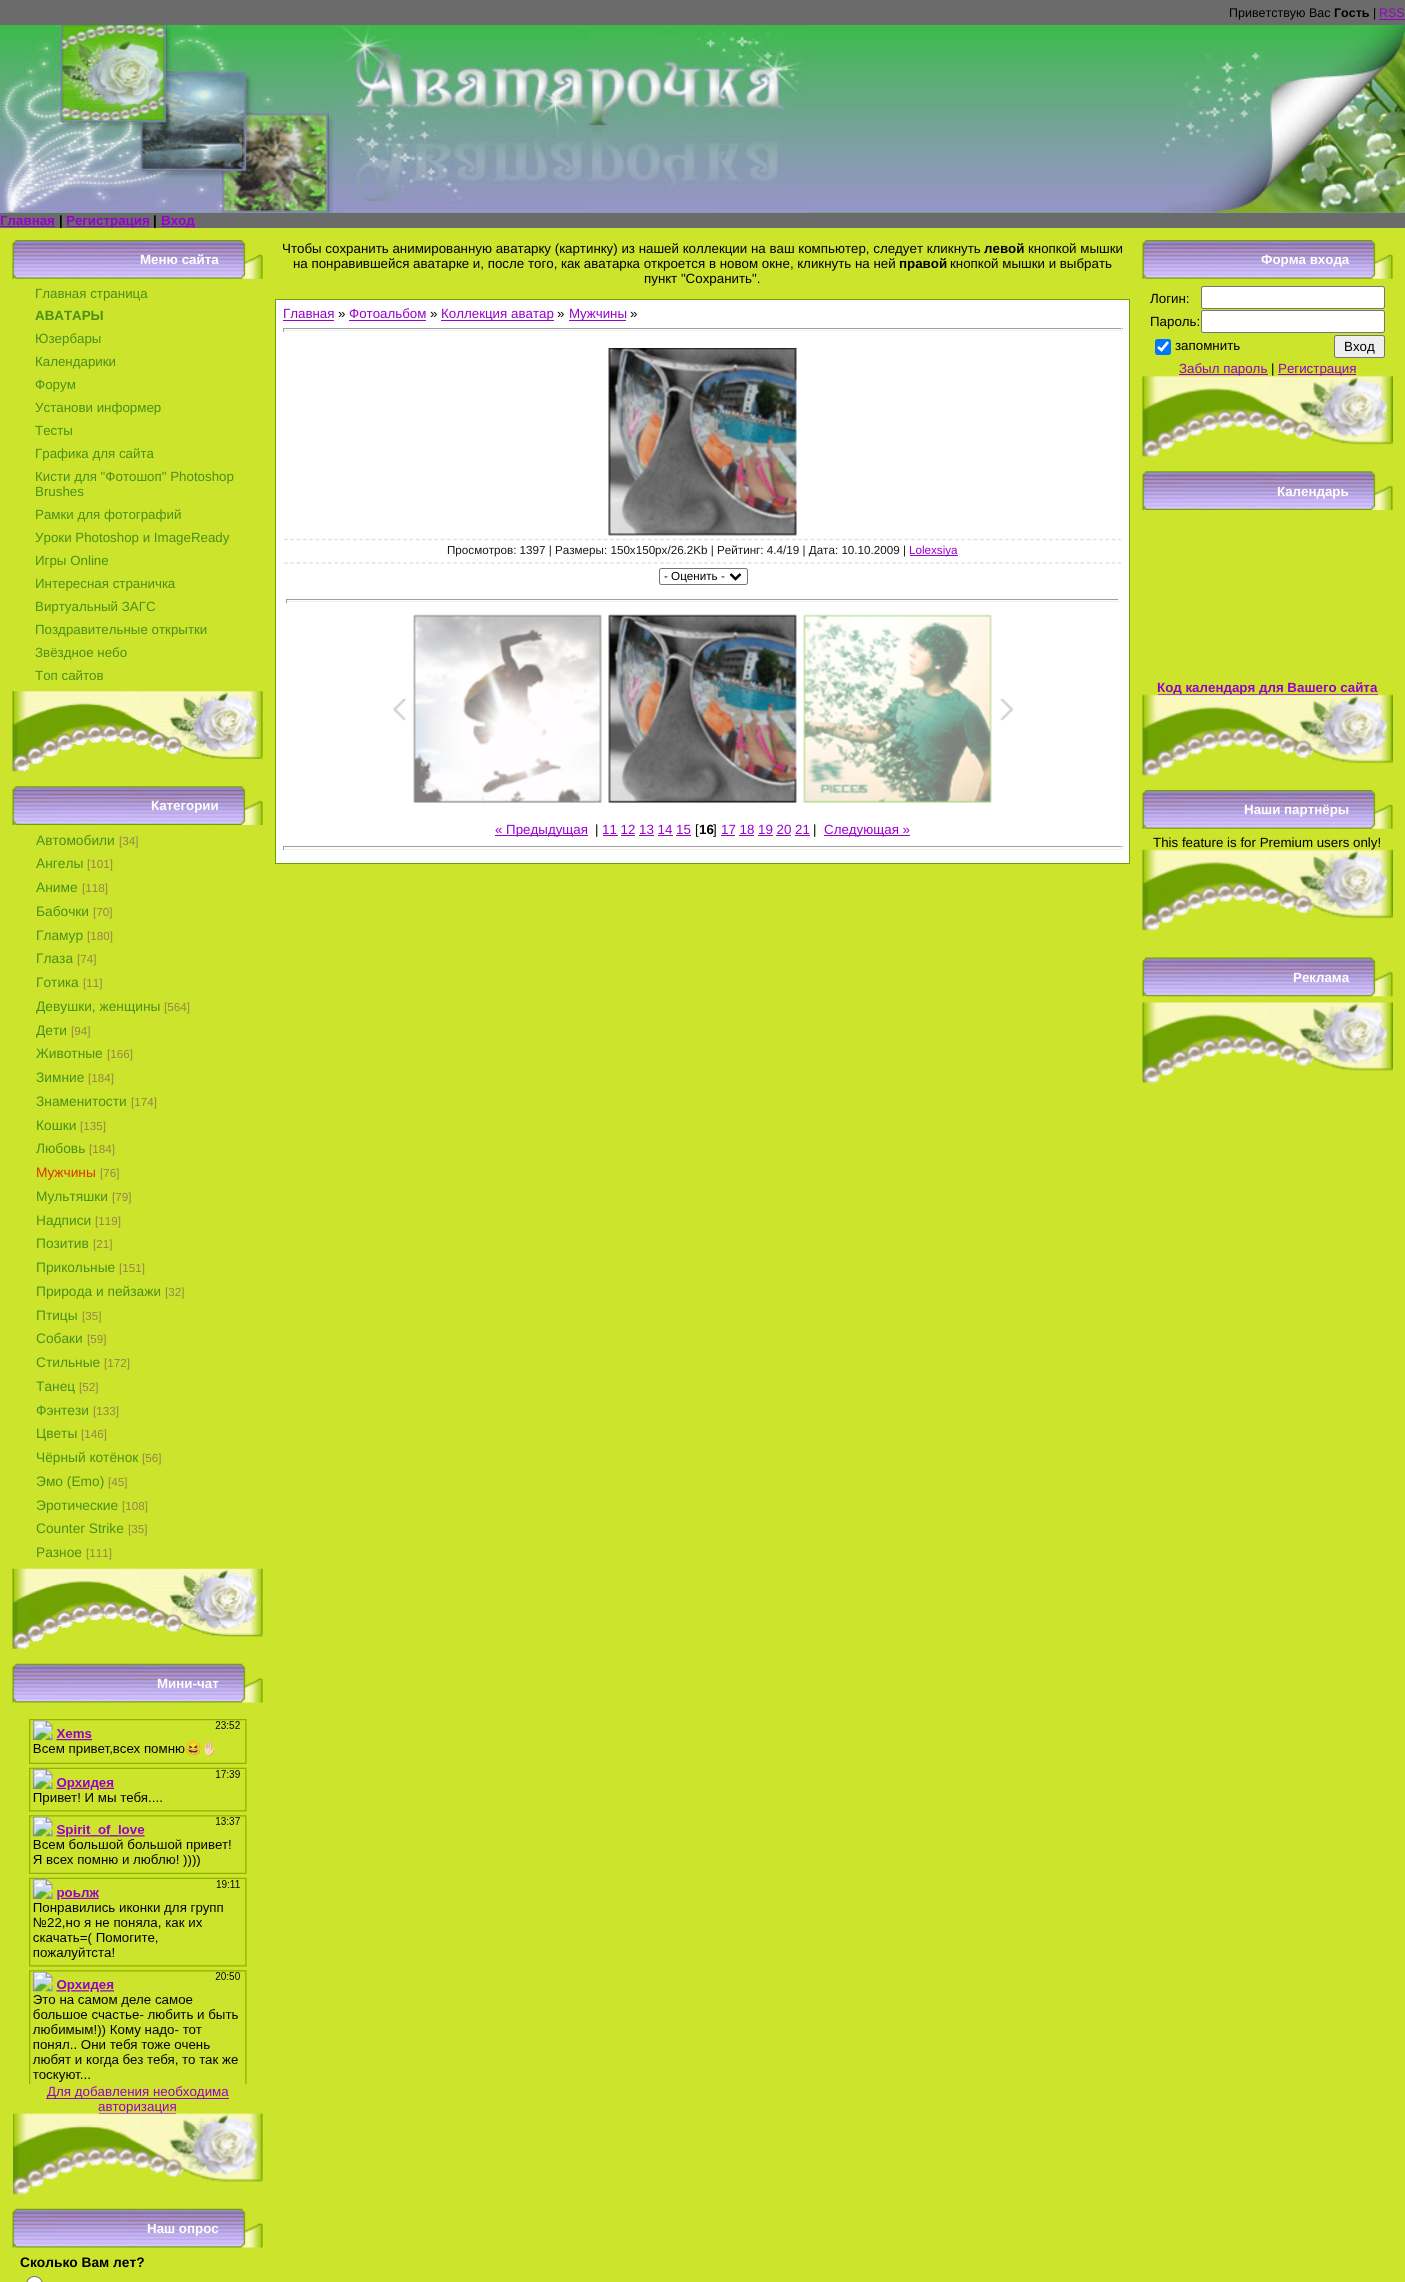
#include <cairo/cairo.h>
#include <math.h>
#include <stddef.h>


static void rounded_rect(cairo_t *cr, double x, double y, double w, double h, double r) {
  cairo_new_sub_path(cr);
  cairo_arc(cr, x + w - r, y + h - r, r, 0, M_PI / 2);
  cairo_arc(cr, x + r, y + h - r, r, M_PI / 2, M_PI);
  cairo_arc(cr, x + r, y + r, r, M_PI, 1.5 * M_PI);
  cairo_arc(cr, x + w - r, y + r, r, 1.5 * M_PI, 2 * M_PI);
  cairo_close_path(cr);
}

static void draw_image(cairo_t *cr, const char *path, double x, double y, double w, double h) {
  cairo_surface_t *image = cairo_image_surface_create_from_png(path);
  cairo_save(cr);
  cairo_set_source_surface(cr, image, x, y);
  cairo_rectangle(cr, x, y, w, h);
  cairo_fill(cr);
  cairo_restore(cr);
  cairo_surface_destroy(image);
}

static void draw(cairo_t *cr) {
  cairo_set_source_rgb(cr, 204 / 255.0, 228 / 255.0, 44 / 255.0);
  cairo_paint(cr);
  cairo_set_source_rgb(cr, 107 / 255.0, 107 / 255.0, 107 / 255.0);
  cairo_rectangle(cr, 0, 0, 1405, 25);
  cairo_fill(cr);
  cairo_set_source_rgb(cr, 153 / 255.0, 0, 204 / 255.0);
  cairo_rectangle(cr, 1379, 19, 26, 1);
  cairo_fill(cr);
  draw_image(cr, "images/1.png", 0, 25, 1405, 188);
  draw_image(cr, "images/2.png", 0, 25, 809, 188);
  draw_image(cr, "images/3.png", 1160, 25, 245, 188);
  cairo_set_source_rgb(cr, 107 / 255.0, 107 / 255.0, 107 / 255.0);
  cairo_rectangle(cr, 0, 213, 1405, 15);
  cairo_fill(cr);
  cairo_set_source_rgb(cr, 153 / 255.0, 0, 204 / 255.0);
  cairo_rectangle(cr, 0, 226, 55, 1);
  cairo_fill(cr);
  cairo_rectangle(cr, 66, 226, 84, 1);
  cairo_fill(cr);
  cairo_rectangle(cr, 161, 226, 34, 1);
  cairo_fill(cr);
  draw_image(cr, "images/4.png", 12, 240, 251, 39);
  draw_image(cr, "images/5.png", 12, 691, 251, 81);
  draw_image(cr, "images/6.png", 12, 786, 251, 39);
  draw_image(cr, "images/7.png", 12, 1568, 251, 81);
  draw_image(cr, "images/8.png", 12, 1663, 251, 40);
  draw_image(cr, "images/9.png", 29, 1719, 218, 365);
  cairo_rectangle(cr, 46, 2098, 183, 1);
  cairo_fill(cr);
  cairo_rectangle(cr, 99, 2113, 77, 1);
  cairo_fill(cr);
  draw_image(cr, "images/8.png", 12, 2208, 251, 40);
  cairo_set_source_rgb(cr, 1, 1, 1);
  rounded_rect(cr, 26.5, 2276.5, 16, 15, 8);
  cairo_fill_preserve(cr);
  cairo_set_source_rgb(cr, 118 / 255.0, 118 / 255.0, 118 / 255.0);
  cairo_set_line_width(cr, 1);
  cairo_stroke(cr);
  cairo_rectangle(cr, 275.5, 299.5, 854, 564);
  cairo_set_source_rgb(cr, 109 / 255.0, 161 / 255.0, 4 / 255.0);
  cairo_stroke(cr);
  cairo_set_source_rgb(cr, 1, 1, 1);
  cairo_rectangle(cr, 276, 300, 853, 563);
  cairo_fill(cr);
  cairo_set_source_rgb(cr, 153 / 255.0, 0, 204 / 255.0);
  cairo_rectangle(cr, 283, 320, 51, 1);
  cairo_fill(cr);
  cairo_rectangle(cr, 349, 320, 77, 1);
  cairo_fill(cr);
  cairo_rectangle(cr, 441, 320, 113, 1);
  cairo_fill(cr);
  cairo_rectangle(cr, 569, 320, 57, 1);
  cairo_fill(cr);
  cairo_set_source_rgb(cr, 159 / 255.0, 159 / 255.0, 159 / 255.0);
  cairo_rectangle(cr, 283, 328, 840, 1);
  cairo_fill(cr);
  cairo_set_source_rgb(cr, 238 / 255.0, 238 / 255.0, 238 / 255.0);
  cairo_rectangle(cr, 1121, 328, 1, 4);
  cairo_fill(cr);
  cairo_rectangle(cr, 283, 330, 840, 1);
  cairo_fill(cr);
  cairo_set_source_rgb(cr, 159 / 255.0, 159 / 255.0, 159 / 255.0);
  cairo_rectangle(cr, 283, 328, 1, 4);
  cairo_fill(cr);
  draw_image(cr, "images/11.png", 608, 348, 189, 188);
  cairo_new_path(cr);
  cairo_move_to(cr, 284, 539.5);
  cairo_line_to(cr, 1121, 539.5);
  cairo_set_source_rgb(cr, 221 / 255.0, 221 / 255.0, 221 / 255.0);
  cairo_set_line_width(cr, 1.2);
  cairo_set_dash(cr, (double[]){3.75, 2.52}, 2, 0);
  cairo_stroke(cr);
  cairo_new_path(cr);
  cairo_move_to(cr, 284, 563);
  cairo_line_to(cr, 1121, 563);
  cairo_stroke(cr);
  cairo_set_source_rgb(cr, 153 / 255.0, 0, 204 / 255.0);
  cairo_rectangle(cr, 910, 555, 48, 1);
  cairo_fill(cr);
  rounded_rect(cr, 659.5, 568.5, 88, 16, 2);
  cairo_set_source_rgb(cr, 118 / 255.0, 118 / 255.0, 118 / 255.0);
  cairo_set_line_width(cr, 1);
  cairo_set_dash(cr, NULL, 0, 0);
  cairo_stroke(cr);
  cairo_new_path(cr);
  cairo_move_to(cr, 730.5, 574);
  cairo_line_to(cr, 735.5, 579);
  cairo_line_to(cr, 740.5, 574);
  cairo_set_source_rgb(cr, 0, 0, 0);
  cairo_set_line_width(cr, 2.5);
  cairo_stroke(cr);
  cairo_set_source_rgb(cr, 159 / 255.0, 159 / 255.0, 159 / 255.0);
  cairo_rectangle(cr, 286, 599, 833, 1);
  cairo_fill(cr);
  cairo_set_source_rgb(cr, 238 / 255.0, 238 / 255.0, 238 / 255.0);
  cairo_rectangle(cr, 1118, 599, 1, 4);
  cairo_fill(cr);
  cairo_rectangle(cr, 286, 601, 833, 1);
  cairo_fill(cr);
  cairo_set_source_rgb(cr, 159 / 255.0, 159 / 255.0, 159 / 255.0);
  cairo_rectangle(cr, 286, 599, 1, 4);
  cairo_fill(cr);
  draw_image(cr, "images/12.png", 392, 698, 14, 23);
  draw_image(cr, "images/13.png", 413, 614, 189, 189);
  draw_image(cr, "images/14.png", 608, 614, 189, 189);
  draw_image(cr, "images/15.png", 803, 614, 189, 189);
  draw_image(cr, "images/16.png", 1000, 698, 14, 23);
  cairo_set_source_rgb(cr, 153 / 255.0, 0, 204 / 255.0);
  cairo_rectangle(cr, 495, 835, 93, 1);
  cairo_fill(cr);
  cairo_rectangle(cr, 603, 835, 15, 1);
  cairo_fill(cr);
  cairo_rectangle(cr, 721, 835, 14, 1);
  cairo_fill(cr);
  cairo_rectangle(cr, 824, 835, 86, 1);
  cairo_fill(cr);
  cairo_rectangle(cr, 621, 835, 14, 1);
  cairo_fill(cr);
  cairo_rectangle(cr, 639, 835, 15, 1);
  cairo_fill(cr);
  cairo_rectangle(cr, 658, 835, 15, 1);
  cairo_fill(cr);
  cairo_rectangle(cr, 676, 835, 15, 1);
  cairo_fill(cr);
  cairo_rectangle(cr, 739, 835, 15, 1);
  cairo_fill(cr);
  cairo_rectangle(cr, 758, 835, 15, 1);
  cairo_fill(cr);
  cairo_rectangle(cr, 776, 835, 15, 1);
  cairo_fill(cr);
  cairo_rectangle(cr, 795, 835, 15, 1);
  cairo_fill(cr);
  cairo_set_source_rgb(cr, 159 / 255.0, 159 / 255.0, 159 / 255.0);
  cairo_rectangle(cr, 283, 846, 840, 1);
  cairo_fill(cr);
  cairo_set_source_rgb(cr, 238 / 255.0, 238 / 255.0, 238 / 255.0);
  cairo_rectangle(cr, 1121, 846, 1, 4);
  cairo_fill(cr);
  cairo_rectangle(cr, 283, 849, 840, 1);
  cairo_fill(cr);
  cairo_set_source_rgb(cr, 159 / 255.0, 159 / 255.0, 159 / 255.0);
  cairo_rectangle(cr, 283, 846, 1, 4);
  cairo_fill(cr);
  draw_image(cr, "images/17.png", 1142, 240, 251, 39);
  cairo_set_source_rgb(cr, 1, 1, 1);
  rounded_rect(cr, 1201.5, 286.5, 183, 22, 2);
  cairo_fill_preserve(cr);
  cairo_set_source_rgb(cr, 118 / 255.0, 118 / 255.0, 118 / 255.0);
  cairo_set_line_width(cr, 1);
  cairo_stroke(cr);
  cairo_set_source_rgb(cr, 1, 1, 1);
  rounded_rect(cr, 1201.5, 310.5, 183, 22, 2);
  cairo_fill_preserve(cr);
  cairo_set_source_rgb(cr, 118 / 255.0, 118 / 255.0, 118 / 255.0);
  cairo_stroke(cr);
  cairo_set_source_rgb(cr, 0, 117 / 255.0, 1);
  rounded_rect(cr, 1155, 339, 16, 16, 2.5);
  cairo_fill(cr);
  cairo_new_path(cr);
  cairo_move_to(cr, 1158, 347);
  cairo_line_to(cr, 1161.5, 350);
  cairo_line_to(cr, 1168, 342);
  cairo_set_source_rgb(cr, 1, 1, 1);
  cairo_set_line_width(cr, 2.6);
  cairo_stroke(cr);
  cairo_set_source_rgb(cr, 239 / 255.0, 239 / 255.0, 239 / 255.0);
  rounded_rect(cr, 1334.5, 335.5, 50, 22, 2);
  cairo_fill_preserve(cr);
  cairo_set_source_rgb(cr, 118 / 255.0, 118 / 255.0, 118 / 255.0);
  cairo_set_line_width(cr, 1);
  cairo_stroke(cr);
  cairo_set_source_rgb(cr, 153 / 255.0, 0, 204 / 255.0);
  cairo_rectangle(cr, 1179, 374, 89, 1);
  cairo_fill(cr);
  cairo_rectangle(cr, 1278, 374, 78, 1);
  cairo_fill(cr);
  draw_image(cr, "images/19.png", 1142, 471, 251, 39);
  cairo_rectangle(cr, 1158, 694, 220, 1);
  cairo_fill(cr);
  draw_image(cr, "images/17.png", 1142, 790, 251, 39);
  draw_image(cr, "images/22.png", 1142, 957, 251, 40);
  draw_image(cr, "images/23.png", 1142, 1002, 251, 81);
  cairo_select_font_face(cr, "Liberation Sans", CAIRO_FONT_SLANT_NORMAL, CAIRO_FONT_WEIGHT_NORMAL);
  cairo_set_font_size(cr, 12.5);
  cairo_set_source_rgb(cr, 0, 0, 0);
  cairo_move_to(cr, 1229, 17);
  cairo_show_text(cr, "Приветствую Вас");
  cairo_select_font_face(cr, "Liberation Sans", CAIRO_FONT_SLANT_NORMAL, CAIRO_FONT_WEIGHT_BOLD);
  cairo_move_to(cr, 1334, 17);
  cairo_show_text(cr, "Гость");
  cairo_select_font_face(cr, "Liberation Sans", CAIRO_FONT_SLANT_NORMAL, CAIRO_FONT_WEIGHT_NORMAL);
  cairo_move_to(cr, 1373, 17);
  cairo_show_text(cr, "|");
  cairo_set_source_rgb(cr, 153 / 255.0, 0, 204 / 255.0);
  cairo_move_to(cr, 1379, 17);
  cairo_show_text(cr, "RSS");
  cairo_select_font_face(cr, "Liberation Sans", CAIRO_FONT_SLANT_NORMAL, CAIRO_FONT_WEIGHT_BOLD);
  cairo_set_font_size(cr, 13.33);
  cairo_move_to(cr, 0, 225);
  cairo_show_text(cr, "Главная");
  cairo_set_source_rgb(cr, 0, 0, 0);
  cairo_move_to(cr, 59, 225);
  cairo_show_text(cr, "|");
  cairo_set_source_rgb(cr, 153 / 255.0, 0, 204 / 255.0);
  cairo_move_to(cr, 66, 225);
  cairo_show_text(cr, "Регистрация");
  cairo_set_source_rgb(cr, 0, 0, 0);
  cairo_move_to(cr, 153, 225);
  cairo_show_text(cr, "|");
  cairo_set_source_rgb(cr, 153 / 255.0, 0, 204 / 255.0);
  cairo_move_to(cr, 161, 225);
  cairo_show_text(cr, "Вход");
  cairo_set_source_rgb(cr, 1, 1, 1);
  cairo_move_to(cr, 140, 264);
  cairo_show_text(cr, "Меню сайта");
  cairo_select_font_face(cr, "Liberation Sans", CAIRO_FONT_SLANT_NORMAL, CAIRO_FONT_WEIGHT_NORMAL);
  cairo_set_source_rgb(cr, 75 / 255.0, 144 / 255.0, 26 / 255.0);
  cairo_move_to(cr, 35, 298);
  cairo_show_text(cr, "Главная страница");
  cairo_select_font_face(cr, "Liberation Sans", CAIRO_FONT_SLANT_NORMAL, CAIRO_FONT_WEIGHT_BOLD);
  cairo_move_to(cr, 35, 320);
  cairo_show_text(cr, "АВАТАРЫ");
  cairo_select_font_face(cr, "Liberation Sans", CAIRO_FONT_SLANT_NORMAL, CAIRO_FONT_WEIGHT_NORMAL);
  cairo_move_to(cr, 35, 343);
  cairo_show_text(cr, "Юзербары");
  cairo_move_to(cr, 35, 366);
  cairo_show_text(cr, "Календарики");
  cairo_move_to(cr, 35, 389);
  cairo_show_text(cr, "Форум");
  cairo_move_to(cr, 35, 412);
  cairo_show_text(cr, "Установи информер");
  cairo_move_to(cr, 35, 435);
  cairo_show_text(cr, "Тесты");
  cairo_move_to(cr, 35, 458);
  cairo_show_text(cr, "Графика для сайта");
  cairo_move_to(cr, 35, 481);
  cairo_show_text(cr, "Кисти для \"Фотошоп\" Photoshop");
  cairo_move_to(cr, 35, 496);
  cairo_show_text(cr, "Brushes");
  cairo_move_to(cr, 35, 519);
  cairo_show_text(cr, "Рамки для фотографий");
  cairo_move_to(cr, 35, 542);
  cairo_show_text(cr, "Уроки Photoshop и ImageReady");
  cairo_move_to(cr, 35, 565);
  cairo_show_text(cr, "Игры Online");
  cairo_move_to(cr, 35, 588);
  cairo_show_text(cr, "Интересная страничка");
  cairo_move_to(cr, 35, 611);
  cairo_show_text(cr, "Виртуальный ЗАГС");
  cairo_move_to(cr, 35, 634);
  cairo_show_text(cr, "Поздравительные открытки");
  cairo_move_to(cr, 35, 657);
  cairo_show_text(cr, "Звёздное небо");
  cairo_move_to(cr, 35, 680);
  cairo_show_text(cr, "Топ сайтов");
  cairo_select_font_face(cr, "Liberation Sans", CAIRO_FONT_SLANT_NORMAL, CAIRO_FONT_WEIGHT_BOLD);
  cairo_set_source_rgb(cr, 1, 1, 1);
  cairo_move_to(cr, 151, 810);
  cairo_show_text(cr, "Категории");
  cairo_select_font_face(cr, "Liberation Sans", CAIRO_FONT_SLANT_NORMAL, CAIRO_FONT_WEIGHT_NORMAL);
  cairo_set_font_size(cr, 13.75);
  cairo_set_source_rgb(cr, 75 / 255.0, 144 / 255.0, 26 / 255.0);
  cairo_move_to(cr, 36, 845);
  cairo_show_text(cr, "Автомобили");
  cairo_set_font_size(cr, 11.65);
  cairo_set_source_rgb(cr, 148 / 255.0, 133 / 255.0, 73 / 255.0);
  cairo_move_to(cr, 119, 845);
  cairo_show_text(cr, "[34]");
  cairo_set_font_size(cr, 13.75);
  cairo_set_source_rgb(cr, 75 / 255.0, 144 / 255.0, 26 / 255.0);
  cairo_move_to(cr, 36, 868);
  cairo_show_text(cr, "Ангелы");
  cairo_set_font_size(cr, 11.65);
  cairo_set_source_rgb(cr, 148 / 255.0, 133 / 255.0, 73 / 255.0);
  cairo_move_to(cr, 87, 868);
  cairo_show_text(cr, "[101]");
  cairo_set_font_size(cr, 13.75);
  cairo_set_source_rgb(cr, 75 / 255.0, 144 / 255.0, 26 / 255.0);
  cairo_move_to(cr, 36, 892);
  cairo_show_text(cr, "Аниме");
  cairo_set_font_size(cr, 11.65);
  cairo_set_source_rgb(cr, 148 / 255.0, 133 / 255.0, 73 / 255.0);
  cairo_move_to(cr, 82, 892);
  cairo_show_text(cr, "[118]");
  cairo_set_font_size(cr, 13.75);
  cairo_set_source_rgb(cr, 75 / 255.0, 144 / 255.0, 26 / 255.0);
  cairo_move_to(cr, 36, 916);
  cairo_show_text(cr, "Бабочки");
  cairo_set_font_size(cr, 11.65);
  cairo_set_source_rgb(cr, 148 / 255.0, 133 / 255.0, 73 / 255.0);
  cairo_move_to(cr, 93, 916);
  cairo_show_text(cr, "[70]");
  cairo_set_font_size(cr, 13.75);
  cairo_set_source_rgb(cr, 75 / 255.0, 144 / 255.0, 26 / 255.0);
  cairo_move_to(cr, 36, 940);
  cairo_show_text(cr, "Гламур");
  cairo_set_font_size(cr, 11.65);
  cairo_set_source_rgb(cr, 148 / 255.0, 133 / 255.0, 73 / 255.0);
  cairo_move_to(cr, 87, 940);
  cairo_show_text(cr, "[180]");
  cairo_set_font_size(cr, 13.75);
  cairo_set_source_rgb(cr, 75 / 255.0, 144 / 255.0, 26 / 255.0);
  cairo_move_to(cr, 36, 963);
  cairo_show_text(cr, "Глаза");
  cairo_set_font_size(cr, 11.65);
  cairo_set_source_rgb(cr, 148 / 255.0, 133 / 255.0, 73 / 255.0);
  cairo_move_to(cr, 77, 963);
  cairo_show_text(cr, "[74]");
  cairo_set_font_size(cr, 13.75);
  cairo_set_source_rgb(cr, 75 / 255.0, 144 / 255.0, 26 / 255.0);
  cairo_move_to(cr, 36, 987);
  cairo_show_text(cr, "Готика");
  cairo_set_font_size(cr, 11.65);
  cairo_set_source_rgb(cr, 148 / 255.0, 133 / 255.0, 73 / 255.0);
  cairo_move_to(cr, 83, 987);
  cairo_show_text(cr, "[11]");
  cairo_set_font_size(cr, 13.75);
  cairo_set_source_rgb(cr, 75 / 255.0, 144 / 255.0, 26 / 255.0);
  cairo_move_to(cr, 36, 1011);
  cairo_show_text(cr, "Девушки, женщины");
  cairo_set_font_size(cr, 11.65);
  cairo_set_source_rgb(cr, 148 / 255.0, 133 / 255.0, 73 / 255.0);
  cairo_move_to(cr, 164, 1011);
  cairo_show_text(cr, "[564]");
  cairo_set_font_size(cr, 13.75);
  cairo_set_source_rgb(cr, 75 / 255.0, 144 / 255.0, 26 / 255.0);
  cairo_move_to(cr, 36, 1035);
  cairo_show_text(cr, "Дети");
  cairo_set_font_size(cr, 11.65);
  cairo_set_source_rgb(cr, 148 / 255.0, 133 / 255.0, 73 / 255.0);
  cairo_move_to(cr, 71, 1035);
  cairo_show_text(cr, "[94]");
  cairo_set_font_size(cr, 13.75);
  cairo_set_source_rgb(cr, 75 / 255.0, 144 / 255.0, 26 / 255.0);
  cairo_move_to(cr, 36, 1058);
  cairo_show_text(cr, "Животные");
  cairo_set_font_size(cr, 11.65);
  cairo_set_source_rgb(cr, 148 / 255.0, 133 / 255.0, 73 / 255.0);
  cairo_move_to(cr, 107, 1058);
  cairo_show_text(cr, "[166]");
  cairo_set_font_size(cr, 13.75);
  cairo_set_source_rgb(cr, 75 / 255.0, 144 / 255.0, 26 / 255.0);
  cairo_move_to(cr, 36, 1082);
  cairo_show_text(cr, "Зимние");
  cairo_set_font_size(cr, 11.65);
  cairo_set_source_rgb(cr, 148 / 255.0, 133 / 255.0, 73 / 255.0);
  cairo_move_to(cr, 88, 1082);
  cairo_show_text(cr, "[184]");
  cairo_set_font_size(cr, 13.75);
  cairo_set_source_rgb(cr, 75 / 255.0, 144 / 255.0, 26 / 255.0);
  cairo_move_to(cr, 36, 1106);
  cairo_show_text(cr, "Знаменитости");
  cairo_set_font_size(cr, 11.65);
  cairo_set_source_rgb(cr, 148 / 255.0, 133 / 255.0, 73 / 255.0);
  cairo_move_to(cr, 131, 1106);
  cairo_show_text(cr, "[174]");
  cairo_set_font_size(cr, 13.75);
  cairo_set_source_rgb(cr, 75 / 255.0, 144 / 255.0, 26 / 255.0);
  cairo_move_to(cr, 36, 1130);
  cairo_show_text(cr, "Кошки");
  cairo_set_font_size(cr, 11.65);
  cairo_set_source_rgb(cr, 148 / 255.0, 133 / 255.0, 73 / 255.0);
  cairo_move_to(cr, 80, 1130);
  cairo_show_text(cr, "[135]");
  cairo_set_font_size(cr, 13.75);
  cairo_set_source_rgb(cr, 75 / 255.0, 144 / 255.0, 26 / 255.0);
  cairo_move_to(cr, 36, 1153);
  cairo_show_text(cr, "Любовь");
  cairo_set_font_size(cr, 11.65);
  cairo_set_source_rgb(cr, 148 / 255.0, 133 / 255.0, 73 / 255.0);
  cairo_move_to(cr, 89, 1153);
  cairo_show_text(cr, "[184]");
  cairo_set_font_size(cr, 13.75);
  cairo_set_source_rgb(cr, 220 / 255.0, 55 / 255.0, 0);
  cairo_move_to(cr, 36, 1177);
  cairo_show_text(cr, "Мужчины");
  cairo_set_font_size(cr, 11.65);
  cairo_set_source_rgb(cr, 148 / 255.0, 133 / 255.0, 73 / 255.0);
  cairo_move_to(cr, 100, 1177);
  cairo_show_text(cr, "[76]");
  cairo_set_font_size(cr, 13.75);
  cairo_set_source_rgb(cr, 75 / 255.0, 144 / 255.0, 26 / 255.0);
  cairo_move_to(cr, 36, 1201);
  cairo_show_text(cr, "Мультяшки");
  cairo_set_font_size(cr, 11.65);
  cairo_set_source_rgb(cr, 148 / 255.0, 133 / 255.0, 73 / 255.0);
  cairo_move_to(cr, 112, 1201);
  cairo_show_text(cr, "[79]");
  cairo_set_font_size(cr, 13.75);
  cairo_set_source_rgb(cr, 75 / 255.0, 144 / 255.0, 26 / 255.0);
  cairo_move_to(cr, 36, 1225);
  cairo_show_text(cr, "Надписи");
  cairo_set_font_size(cr, 11.65);
  cairo_set_source_rgb(cr, 148 / 255.0, 133 / 255.0, 73 / 255.0);
  cairo_move_to(cr, 95, 1225);
  cairo_show_text(cr, "[119]");
  cairo_set_font_size(cr, 13.75);
  cairo_set_source_rgb(cr, 75 / 255.0, 144 / 255.0, 26 / 255.0);
  cairo_move_to(cr, 36, 1248);
  cairo_show_text(cr, "Позитив");
  cairo_set_font_size(cr, 11.65);
  cairo_set_source_rgb(cr, 148 / 255.0, 133 / 255.0, 73 / 255.0);
  cairo_move_to(cr, 93, 1248);
  cairo_show_text(cr, "[21]");
  cairo_set_font_size(cr, 13.75);
  cairo_set_source_rgb(cr, 75 / 255.0, 144 / 255.0, 26 / 255.0);
  cairo_move_to(cr, 36, 1272);
  cairo_show_text(cr, "Прикольные");
  cairo_set_font_size(cr, 11.65);
  cairo_set_source_rgb(cr, 148 / 255.0, 133 / 255.0, 73 / 255.0);
  cairo_move_to(cr, 119, 1272);
  cairo_show_text(cr, "[151]");
  cairo_set_font_size(cr, 13.75);
  cairo_set_source_rgb(cr, 75 / 255.0, 144 / 255.0, 26 / 255.0);
  cairo_move_to(cr, 36, 1296);
  cairo_show_text(cr, "Природа и пейзажи");
  cairo_set_font_size(cr, 11.65);
  cairo_set_source_rgb(cr, 148 / 255.0, 133 / 255.0, 73 / 255.0);
  cairo_move_to(cr, 165, 1296);
  cairo_show_text(cr, "[32]");
  cairo_set_font_size(cr, 13.75);
  cairo_set_source_rgb(cr, 75 / 255.0, 144 / 255.0, 26 / 255.0);
  cairo_move_to(cr, 36, 1320);
  cairo_show_text(cr, "Птицы");
  cairo_set_font_size(cr, 11.65);
  cairo_set_source_rgb(cr, 148 / 255.0, 133 / 255.0, 73 / 255.0);
  cairo_move_to(cr, 82, 1320);
  cairo_show_text(cr, "[35]");
  cairo_set_font_size(cr, 13.75);
  cairo_set_source_rgb(cr, 75 / 255.0, 144 / 255.0, 26 / 255.0);
  cairo_move_to(cr, 36, 1343);
  cairo_show_text(cr, "Собаки");
  cairo_set_font_size(cr, 11.65);
  cairo_set_source_rgb(cr, 148 / 255.0, 133 / 255.0, 73 / 255.0);
  cairo_move_to(cr, 87, 1343);
  cairo_show_text(cr, "[59]");
  cairo_set_font_size(cr, 13.75);
  cairo_set_source_rgb(cr, 75 / 255.0, 144 / 255.0, 26 / 255.0);
  cairo_move_to(cr, 36, 1367);
  cairo_show_text(cr, "Стильные");
  cairo_set_font_size(cr, 11.65);
  cairo_set_source_rgb(cr, 148 / 255.0, 133 / 255.0, 73 / 255.0);
  cairo_move_to(cr, 104, 1367);
  cairo_show_text(cr, "[172]");
  cairo_set_font_size(cr, 13.75);
  cairo_set_source_rgb(cr, 75 / 255.0, 144 / 255.0, 26 / 255.0);
  cairo_move_to(cr, 36, 1391);
  cairo_show_text(cr, "Танец");
  cairo_set_font_size(cr, 11.65);
  cairo_set_source_rgb(cr, 148 / 255.0, 133 / 255.0, 73 / 255.0);
  cairo_move_to(cr, 79, 1391);
  cairo_show_text(cr, "[52]");
  cairo_set_font_size(cr, 13.75);
  cairo_set_source_rgb(cr, 75 / 255.0, 144 / 255.0, 26 / 255.0);
  cairo_move_to(cr, 36, 1415);
  cairo_show_text(cr, "Фэнтези");
  cairo_set_font_size(cr, 11.65);
  cairo_set_source_rgb(cr, 148 / 255.0, 133 / 255.0, 73 / 255.0);
  cairo_move_to(cr, 93, 1415);
  cairo_show_text(cr, "[133]");
  cairo_set_font_size(cr, 13.75);
  cairo_set_source_rgb(cr, 75 / 255.0, 144 / 255.0, 26 / 255.0);
  cairo_move_to(cr, 36, 1438);
  cairo_show_text(cr, "Цветы");
  cairo_set_font_size(cr, 11.65);
  cairo_set_source_rgb(cr, 148 / 255.0, 133 / 255.0, 73 / 255.0);
  cairo_move_to(cr, 81, 1438);
  cairo_show_text(cr, "[146]");
  cairo_set_font_size(cr, 13.75);
  cairo_set_source_rgb(cr, 75 / 255.0, 144 / 255.0, 26 / 255.0);
  cairo_move_to(cr, 36, 1462);
  cairo_show_text(cr, "Чёрный котёнок");
  cairo_set_font_size(cr, 11.65);
  cairo_set_source_rgb(cr, 148 / 255.0, 133 / 255.0, 73 / 255.0);
  cairo_move_to(cr, 142, 1462);
  cairo_show_text(cr, "[56]");
  cairo_set_font_size(cr, 13.75);
  cairo_set_source_rgb(cr, 75 / 255.0, 144 / 255.0, 26 / 255.0);
  cairo_move_to(cr, 36, 1486);
  cairo_show_text(cr, "Эмо (Emo)");
  cairo_set_font_size(cr, 11.65);
  cairo_set_source_rgb(cr, 148 / 255.0, 133 / 255.0, 73 / 255.0);
  cairo_move_to(cr, 108, 1486);
  cairo_show_text(cr, "[45]");
  cairo_set_font_size(cr, 13.75);
  cairo_set_source_rgb(cr, 75 / 255.0, 144 / 255.0, 26 / 255.0);
  cairo_move_to(cr, 36, 1510);
  cairo_show_text(cr, "Эротические");
  cairo_set_font_size(cr, 11.65);
  cairo_set_source_rgb(cr, 148 / 255.0, 133 / 255.0, 73 / 255.0);
  cairo_move_to(cr, 122, 1510);
  cairo_show_text(cr, "[108]");
  cairo_set_font_size(cr, 13.75);
  cairo_set_source_rgb(cr, 75 / 255.0, 144 / 255.0, 26 / 255.0);
  cairo_move_to(cr, 36, 1533);
  cairo_show_text(cr, "Counter Strike");
  cairo_set_font_size(cr, 11.65);
  cairo_set_source_rgb(cr, 148 / 255.0, 133 / 255.0, 73 / 255.0);
  cairo_move_to(cr, 128, 1533);
  cairo_show_text(cr, "[35]");
  cairo_set_font_size(cr, 13.75);
  cairo_set_source_rgb(cr, 75 / 255.0, 144 / 255.0, 26 / 255.0);
  cairo_move_to(cr, 36, 1557);
  cairo_show_text(cr, "Разное");
  cairo_set_font_size(cr, 11.65);
  cairo_set_source_rgb(cr, 148 / 255.0, 133 / 255.0, 73 / 255.0);
  cairo_move_to(cr, 86, 1557);
  cairo_show_text(cr, "[111]");
  cairo_select_font_face(cr, "Liberation Sans", CAIRO_FONT_SLANT_NORMAL, CAIRO_FONT_WEIGHT_BOLD);
  cairo_set_font_size(cr, 13.33);
  cairo_set_source_rgb(cr, 1, 1, 1);
  cairo_move_to(cr, 157, 1688);
  cairo_show_text(cr, "Мини-чат");
  cairo_select_font_face(cr, "Liberation Sans", CAIRO_FONT_SLANT_NORMAL, CAIRO_FONT_WEIGHT_NORMAL);
  cairo_set_source_rgb(cr, 153 / 255.0, 0, 204 / 255.0);
  cairo_move_to(cr, 47, 2096);
  cairo_show_text(cr, "Для добавления необходима");
  cairo_move_to(cr, 98, 2111);
  cairo_show_text(cr, "авторизация");
  draw_image(cr, "images/10.png", 13, 2113, 250, 82);
  cairo_select_font_face(cr, "Liberation Sans", CAIRO_FONT_SLANT_NORMAL, CAIRO_FONT_WEIGHT_BOLD);
  cairo_set_source_rgb(cr, 1, 1, 1);
  cairo_move_to(cr, 147, 2233);
  cairo_show_text(cr, "Наш опрос");
  cairo_set_font_size(cr, 13.75);
  cairo_set_source_rgb(cr, 0, 0, 0);
  cairo_move_to(cr, 20, 2267);
  cairo_show_text(cr, "Сколько Вам лет?");
  cairo_select_font_face(cr, "Liberation Sans", CAIRO_FONT_SLANT_NORMAL, CAIRO_FONT_WEIGHT_NORMAL);
  cairo_set_font_size(cr, 13.33);
  cairo_move_to(cr, 282, 253);
  cairo_show_text(cr, "Чтобы сохранить анимированную аватарку (картинку) из нашей коллекции на ваш компьютер, следует кликнуть");
  cairo_select_font_face(cr, "Liberation Sans", CAIRO_FONT_SLANT_NORMAL, CAIRO_FONT_WEIGHT_BOLD);
  cairo_move_to(cr, 984, 253);
  cairo_show_text(cr, "левой");
  cairo_select_font_face(cr, "Liberation Sans", CAIRO_FONT_SLANT_NORMAL, CAIRO_FONT_WEIGHT_NORMAL);
  cairo_move_to(cr, 1028, 253);
  cairo_show_text(cr, "кнопкой мышки");
  cairo_move_to(cr, 293, 268);
  cairo_show_text(cr, "на понравившейся аватарке и, после того, как аватарка откроется в новом окне, кликнуть на ней");
  cairo_select_font_face(cr, "Liberation Sans", CAIRO_FONT_SLANT_NORMAL, CAIRO_FONT_WEIGHT_BOLD);
  cairo_move_to(cr, 899, 268);
  cairo_show_text(cr, "правой");
  cairo_select_font_face(cr, "Liberation Sans", CAIRO_FONT_SLANT_NORMAL, CAIRO_FONT_WEIGHT_NORMAL);
  cairo_move_to(cr, 950, 268);
  cairo_show_text(cr, "кнопкой мышки и выбрать");
  cairo_move_to(cr, 644, 283);
  cairo_show_text(cr, "пункт \"Сохранить\".");
  cairo_set_source_rgb(cr, 153 / 255.0, 0, 204 / 255.0);
  cairo_move_to(cr, 283, 318);
  cairo_show_text(cr, "Главная");
  cairo_set_source_rgb(cr, 0, 0, 0);
  cairo_move_to(cr, 338, 318);
  cairo_show_text(cr, "»");
  cairo_set_source_rgb(cr, 153 / 255.0, 0, 204 / 255.0);
  cairo_move_to(cr, 349, 318);
  cairo_show_text(cr, "Фотоальбом");
  cairo_set_source_rgb(cr, 0, 0, 0);
  cairo_move_to(cr, 430, 318);
  cairo_show_text(cr, "»");
  cairo_set_source_rgb(cr, 153 / 255.0, 0, 204 / 255.0);
  cairo_move_to(cr, 441, 318);
  cairo_show_text(cr, "Коллекция аватар");
  cairo_set_source_rgb(cr, 0, 0, 0);
  cairo_move_to(cr, 557, 318);
  cairo_show_text(cr, "»");
  cairo_set_source_rgb(cr, 153 / 255.0, 0, 204 / 255.0);
  cairo_move_to(cr, 569, 318);
  cairo_show_text(cr, "Мужчины");
  cairo_set_source_rgb(cr, 0, 0, 0);
  cairo_move_to(cr, 630, 318);
  cairo_show_text(cr, "»");
  cairo_set_font_size(cr, 11.65);
  cairo_set_source_rgb(cr, 26 / 255.0, 26 / 255.0, 26 / 255.0);
  cairo_move_to(cr, 447, 554);
  cairo_show_text(cr, "Просмотров: 1397 | Размеры: 150x150px/26.2Kb | Рейтинг: 4.4/19 | Дата: 10.10.2009 |");
  cairo_set_source_rgb(cr, 153 / 255.0, 0, 204 / 255.0);
  cairo_move_to(cr, 909, 554);
  cairo_show_text(cr, "Lolexsiya");
  cairo_set_source_rgb(cr, 0, 0, 0);
  cairo_move_to(cr, 664, 580);
  cairo_show_text(cr, "- Оценить -");
  cairo_set_font_size(cr, 13.33);
  cairo_set_source_rgb(cr, 153 / 255.0, 0, 204 / 255.0);
  cairo_move_to(cr, 495, 834);
  cairo_show_text(cr, "« Предыдущая");
  cairo_set_source_rgb(cr, 0, 0, 0);
  cairo_move_to(cr, 595, 834);
  cairo_show_text(cr, "|");
  cairo_set_source_rgb(cr, 153 / 255.0, 0, 204 / 255.0);
  cairo_move_to(cr, 602, 834);
  cairo_show_text(cr, "11 12 13 14 15");
  cairo_set_source_rgb(cr, 0, 0, 0);
  cairo_move_to(cr, 695, 834);
  cairo_show_text(cr, "[");
  cairo_select_font_face(cr, "Liberation Sans", CAIRO_FONT_SLANT_NORMAL, CAIRO_FONT_WEIGHT_BOLD);
  cairo_move_to(cr, 699, 834);
  cairo_show_text(cr, "16");
  cairo_select_font_face(cr, "Liberation Sans", CAIRO_FONT_SLANT_NORMAL, CAIRO_FONT_WEIGHT_NORMAL);
  cairo_move_to(cr, 713, 834);
  cairo_show_text(cr, "]");
  cairo_set_source_rgb(cr, 153 / 255.0, 0, 204 / 255.0);
  cairo_move_to(cr, 721, 834);
  cairo_show_text(cr, "17 18 19 20 21");
  cairo_set_source_rgb(cr, 0, 0, 0);
  cairo_move_to(cr, 813, 834);
  cairo_show_text(cr, "|");
  cairo_set_source_rgb(cr, 153 / 255.0, 0, 204 / 255.0);
  cairo_move_to(cr, 824, 834);
  cairo_show_text(cr, "Следующая »");
  cairo_select_font_face(cr, "Liberation Sans", CAIRO_FONT_SLANT_NORMAL, CAIRO_FONT_WEIGHT_BOLD);
  cairo_set_source_rgb(cr, 1, 1, 1);
  cairo_move_to(cr, 1261, 264);
  cairo_show_text(cr, "Форма входа");
  cairo_select_font_face(cr, "Liberation Sans", CAIRO_FONT_SLANT_NORMAL, CAIRO_FONT_WEIGHT_NORMAL);
  cairo_set_source_rgb(cr, 0, 0, 0);
  cairo_move_to(cr, 1150, 303);
  cairo_show_text(cr, "Логин:");
  cairo_move_to(cr, 1150, 326);
  cairo_show_text(cr, "Пароль:");
  cairo_move_to(cr, 1175, 350);
  cairo_show_text(cr, "запомнить");
  cairo_move_to(cr, 1344, 351);
  cairo_show_text(cr, "Вход");
  cairo_set_source_rgb(cr, 153 / 255.0, 0, 204 / 255.0);
  cairo_move_to(cr, 1179, 373);
  cairo_show_text(cr, "Забыл пароль");
  cairo_set_source_rgb(cr, 0, 0, 0);
  cairo_move_to(cr, 1271, 373);
  cairo_show_text(cr, "|");
  cairo_set_source_rgb(cr, 153 / 255.0, 0, 204 / 255.0);
  cairo_move_to(cr, 1278, 373);
  cairo_show_text(cr, "Регистрация");
  draw_image(cr, "images/18.png", 1142, 375, 251, 82);
  cairo_select_font_face(cr, "Liberation Sans", CAIRO_FONT_SLANT_NORMAL, CAIRO_FONT_WEIGHT_BOLD);
  cairo_set_source_rgb(cr, 1, 1, 1);
  cairo_move_to(cr, 1277, 496);
  cairo_show_text(cr, "Календарь");
  cairo_set_source_rgb(cr, 153 / 255.0, 0, 204 / 255.0);
  cairo_move_to(cr, 1157, 692);
  cairo_show_text(cr, "Код календаря для Вашего сайта");
  draw_image(cr, "images/20.png", 1142, 694, 251, 82);
  cairo_set_source_rgb(cr, 1, 1, 1);
  cairo_move_to(cr, 1244, 814);
  cairo_show_text(cr, "Наши партнёры");
  cairo_select_font_face(cr, "Liberation Sans", CAIRO_FONT_SLANT_NORMAL, CAIRO_FONT_WEIGHT_NORMAL);
  cairo_set_source_rgb(cr, 0, 0, 0);
  cairo_move_to(cr, 1153, 847);
  cairo_show_text(cr, "This feature is for Premium users only!");
  draw_image(cr, "images/21.png", 1142, 849, 251, 82);
  cairo_select_font_face(cr, "Liberation Sans", CAIRO_FONT_SLANT_NORMAL, CAIRO_FONT_WEIGHT_BOLD);
  cairo_set_source_rgb(cr, 1, 1, 1);
  cairo_move_to(cr, 1293, 982);
  cairo_show_text(cr, "Реклама");
}

int main(void) {
  cairo_surface_t *surface = cairo_image_surface_create(CAIRO_FORMAT_RGB24, 1405, 2282);
  cairo_t *cr = cairo_create(surface);
  cairo_font_options_t *options = cairo_font_options_create();
  cairo_font_options_set_hint_metrics(options, CAIRO_HINT_METRICS_OFF);
  cairo_font_options_set_hint_style(options, CAIRO_HINT_STYLE_NONE);
  cairo_set_font_options(cr, options);
  cairo_set_miter_limit(cr, 4);
  draw(cr);
  cairo_surface_write_to_png(surface, "out.png");
  cairo_font_options_destroy(options);
  cairo_destroy(cr);
  cairo_surface_destroy(surface);
  return 0;
}
